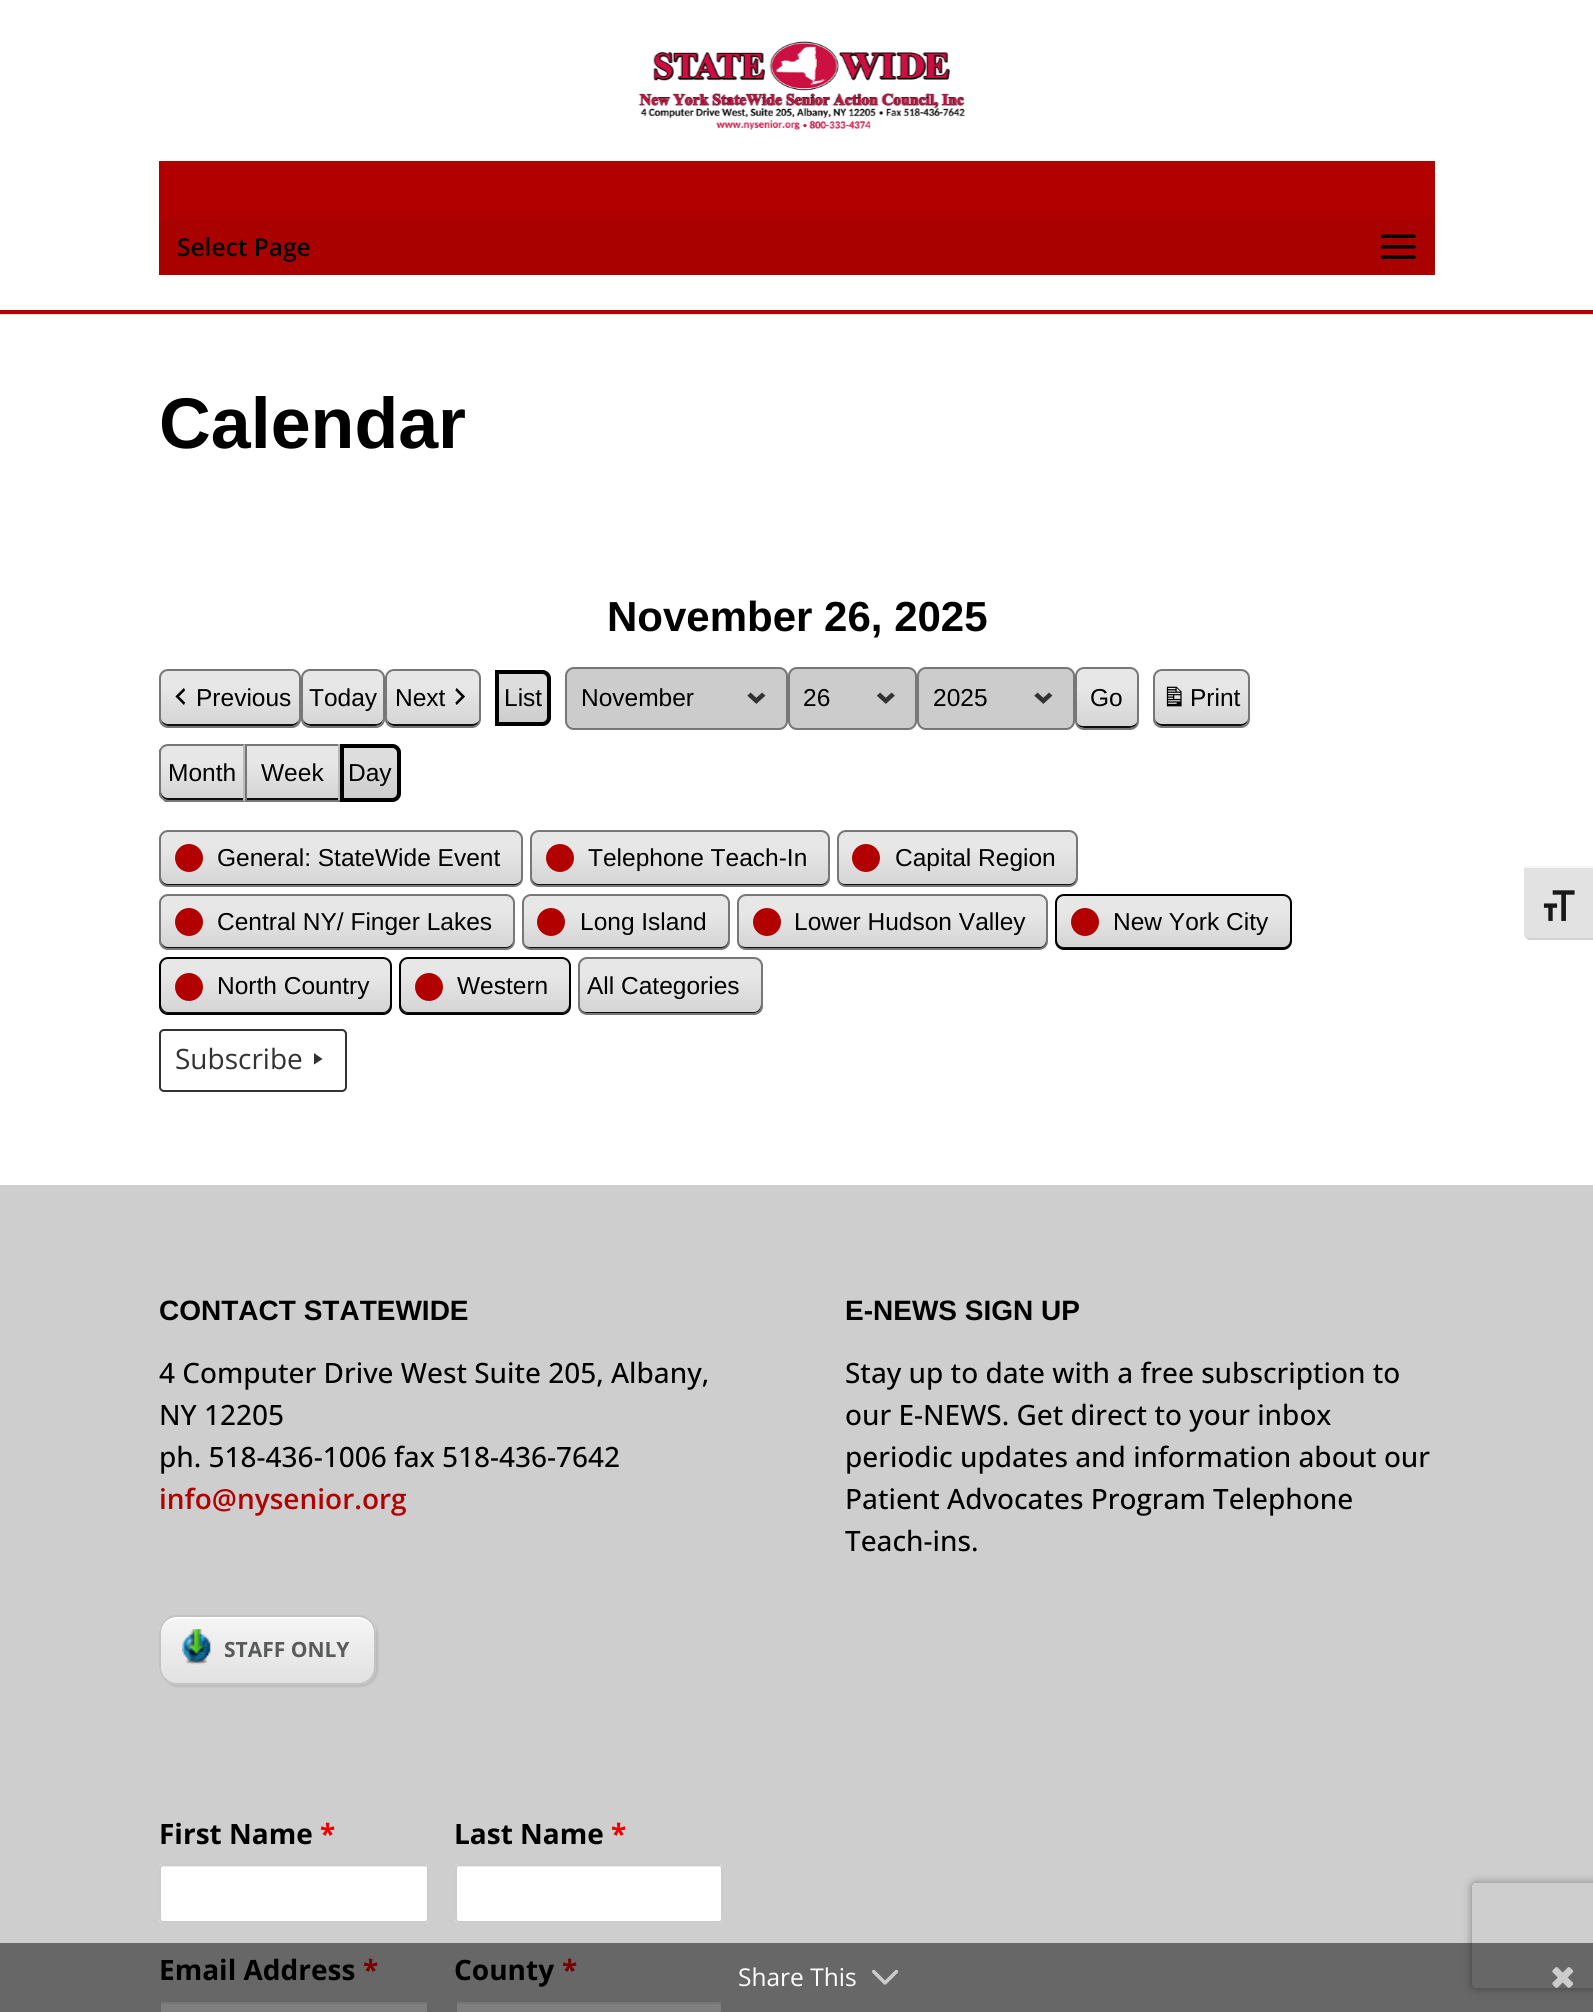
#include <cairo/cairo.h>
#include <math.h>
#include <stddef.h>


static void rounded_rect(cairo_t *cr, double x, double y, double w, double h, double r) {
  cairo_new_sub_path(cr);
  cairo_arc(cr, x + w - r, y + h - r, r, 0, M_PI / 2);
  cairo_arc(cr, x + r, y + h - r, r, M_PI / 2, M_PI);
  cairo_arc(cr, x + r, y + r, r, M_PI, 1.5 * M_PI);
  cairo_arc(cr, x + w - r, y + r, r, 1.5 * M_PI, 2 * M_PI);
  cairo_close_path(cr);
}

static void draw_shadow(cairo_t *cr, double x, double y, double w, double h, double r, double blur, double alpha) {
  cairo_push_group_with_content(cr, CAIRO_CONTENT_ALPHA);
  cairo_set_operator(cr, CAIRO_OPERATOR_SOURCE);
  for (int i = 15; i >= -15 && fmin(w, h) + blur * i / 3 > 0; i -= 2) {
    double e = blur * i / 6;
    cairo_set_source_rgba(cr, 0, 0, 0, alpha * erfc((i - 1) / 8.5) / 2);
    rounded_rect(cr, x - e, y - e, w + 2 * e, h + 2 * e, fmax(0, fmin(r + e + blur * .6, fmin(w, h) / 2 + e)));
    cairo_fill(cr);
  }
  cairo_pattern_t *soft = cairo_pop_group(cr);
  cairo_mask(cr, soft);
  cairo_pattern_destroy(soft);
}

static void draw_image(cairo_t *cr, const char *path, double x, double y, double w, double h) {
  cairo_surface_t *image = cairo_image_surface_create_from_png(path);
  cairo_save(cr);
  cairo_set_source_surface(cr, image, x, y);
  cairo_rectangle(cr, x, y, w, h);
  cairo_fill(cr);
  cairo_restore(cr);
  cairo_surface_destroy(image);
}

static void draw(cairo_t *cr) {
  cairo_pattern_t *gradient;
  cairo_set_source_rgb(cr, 206 / 255.0, 206 / 255.0, 206 / 255.0);
  cairo_paint(cr);
  cairo_set_source_rgb(cr, 230 / 255.0, 230 / 255.0, 230 / 255.0);
  cairo_rectangle(cr, 0, 314, 1593, 1);
  cairo_fill(cr);
  cairo_set_source_rgb(cr, 1, 1, 1);
  cairo_rectangle(cr, 0, 0, 1593, 310);
  cairo_fill(cr);
  cairo_set_source_rgb(cr, 178 / 255.0, 0, 0);
  cairo_rectangle(cr, 0, 310, 1593, 4);
  cairo_fill(cr);
  draw_image(cr, "images/1.png", 638, 41, 327, 89);
  cairo_rectangle(cr, 159, 161, 1276, 114);
  cairo_fill(cr);
  cairo_set_source_rgb(cr, 169 / 255.0, 0, 0);
  rounded_rect(cr, 159, 217, 1276, 58, 9);
  cairo_fill(cr);
  draw_image(cr, "images/2.png", 1380, 234, 36, 25);
  cairo_set_source_rgb(cr, 1, 1, 1);
  cairo_rectangle(cr, 0, 315, 1593, 870);
  cairo_fill(cr);
  cairo_save(cr);
  rounded_rect(cr, 159, 669, 142, 59, 9);
  cairo_clip(cr);
  gradient = cairo_pattern_create_linear(230, 726, 230, 670);
  cairo_pattern_add_color_stop_rgba(gradient, 0, 212 / 255.0, 212 / 255.0, 212 / 255.0, 1);
  cairo_pattern_add_color_stop_rgba(gradient, 0.7, 231 / 255.0, 231 / 255.0, 231 / 255.0, 1);
  cairo_set_source(cr, gradient);
  cairo_pattern_destroy(gradient);
  cairo_rectangle(cr, 159, 670, 142, 56);
  cairo_fill(cr);
  cairo_restore(cr);
  cairo_set_source_rgb(cr, 15 / 255.0, 15 / 255.0, 15 / 255.0);
  cairo_new_path(cr);
  cairo_move_to(cr, 161, 718);
  cairo_curve_to(cr, 161, 731, 182, 726, 189, 726);
  cairo_line_to(cr, 271, 726);
  cairo_curve_to(cr, 278, 726, 299, 731, 299, 718);
  cairo_curve_to(cr, 299, 721, 296, 724, 292, 724);
  cairo_line_to(cr, 168, 724);
  cairo_curve_to(cr, 164, 724, 161, 721, 161, 718);
  cairo_close_path(cr);
  cairo_fill(cr);
  rounded_rect(cr, 160, 670, 140, 57, 8);
  cairo_set_source_rgb(cr, 119 / 255.0, 119 / 255.0, 119 / 255.0);
  cairo_stroke(cr);
  draw_image(cr, "images/3.png", 175, 688, 11, 17);
  cairo_save(cr);
  rounded_rect(cr, 301, 669, 84, 59, 9);
  cairo_clip(cr);
  gradient = cairo_pattern_create_linear(343, 726, 343, 670);
  cairo_pattern_add_color_stop_rgba(gradient, 0, 212 / 255.0, 212 / 255.0, 212 / 255.0, 1);
  cairo_pattern_add_color_stop_rgba(gradient, 0.7, 231 / 255.0, 231 / 255.0, 231 / 255.0, 1);
  cairo_set_source(cr, gradient);
  cairo_pattern_destroy(gradient);
  cairo_rectangle(cr, 301, 670, 84, 56);
  cairo_fill(cr);
  cairo_restore(cr);
  cairo_set_source_rgb(cr, 15 / 255.0, 15 / 255.0, 15 / 255.0);
  cairo_new_path(cr);
  cairo_move_to(cr, 303, 718);
  cairo_curve_to(cr, 303, 728, 314, 726, 321, 726);
  cairo_line_to(cr, 365, 726);
  cairo_curve_to(cr, 372, 726, 383, 728, 383, 718);
  cairo_curve_to(cr, 383, 721, 380, 724, 376, 724);
  cairo_line_to(cr, 310, 724);
  cairo_curve_to(cr, 306, 724, 303, 721, 303, 718);
  cairo_close_path(cr);
  cairo_fill(cr);
  rounded_rect(cr, 302, 670, 82, 57, 8);
  cairo_set_source_rgb(cr, 119 / 255.0, 119 / 255.0, 119 / 255.0);
  cairo_stroke(cr);
  cairo_save(cr);
  rounded_rect(cr, 385, 669, 96, 59, 9);
  cairo_clip(cr);
  gradient = cairo_pattern_create_linear(433, 726, 433, 670);
  cairo_pattern_add_color_stop_rgba(gradient, 0, 212 / 255.0, 212 / 255.0, 212 / 255.0, 1);
  cairo_pattern_add_color_stop_rgba(gradient, 0.7, 231 / 255.0, 231 / 255.0, 231 / 255.0, 1);
  cairo_set_source(cr, gradient);
  cairo_pattern_destroy(gradient);
  cairo_rectangle(cr, 385, 670, 96, 56);
  cairo_fill(cr);
  cairo_restore(cr);
  cairo_set_source_rgb(cr, 15 / 255.0, 15 / 255.0, 15 / 255.0);
  cairo_new_path(cr);
  cairo_move_to(cr, 387, 718);
  cairo_curve_to(cr, 387, 729, 400, 726, 407, 726);
  cairo_line_to(cr, 460, 726);
  cairo_curve_to(cr, 467, 726, 480, 729, 480, 718);
  cairo_curve_to(cr, 480, 721, 476, 724, 472, 724);
  cairo_line_to(cr, 394, 724);
  cairo_curve_to(cr, 390, 724, 387, 721, 387, 718);
  cairo_close_path(cr);
  cairo_fill(cr);
  rounded_rect(cr, 386, 670, 94, 57, 8);
  cairo_set_source_rgb(cr, 119 / 255.0, 119 / 255.0, 119 / 255.0);
  cairo_stroke(cr);
  draw_image(cr, "images/4.png", 455, 688, 10, 17);
  cairo_save(cr);
  cairo_new_path(cr);
  cairo_move_to(cr, 495, 670);
  cairo_line_to(cr, 542, 670);
  cairo_curve_to(cr, 547, 670, 551, 674, 551, 679);
  cairo_line_to(cr, 551, 717);
  cairo_curve_to(cr, 551, 722, 547, 726, 542, 726);
  cairo_line_to(cr, 495, 726);
  cairo_close_path(cr);
  cairo_clip(cr);
  gradient = cairo_pattern_create_linear(523, 725, 523, 672);
  cairo_pattern_add_color_stop_rgba(gradient, 0, 203 / 255.0, 203 / 255.0, 203 / 255.0, 1);
  cairo_pattern_add_color_stop_rgba(gradient, 0.7, 221 / 255.0, 221 / 255.0, 221 / 255.0, 1);
  cairo_set_source(cr, gradient);
  cairo_pattern_destroy(gradient);
  cairo_rectangle(cr, 499, 672, 52, 53);
  cairo_fill(cr);
  cairo_restore(cr);
  cairo_new_path(cr);
  cairo_move_to(cr, 496, 671);
  cairo_line_to(cr, 542, 671);
  cairo_curve_to(cr, 546.5, 671, 550, 674.5, 550, 679);
  cairo_line_to(cr, 550, 717);
  cairo_curve_to(cr, 550, 721.5, 546.5, 725, 542, 725);
  cairo_line_to(cr, 496, 725);
  cairo_close_path(cr);
  cairo_set_source_rgb(cr, 113 / 255.0, 113 / 255.0, 113 / 255.0);
  cairo_stroke(cr);
  cairo_new_path(cr);
  cairo_move_to(cr, 497, 672);
  cairo_line_to(cr, 542, 672);
  cairo_curve_to(cr, 546, 672, 549, 675, 549, 679);
  cairo_line_to(cr, 549, 717);
  cairo_curve_to(cr, 549, 721, 546, 724, 542, 724);
  cairo_line_to(cr, 497, 724);
  cairo_close_path(cr);
  cairo_set_source_rgb(cr, 0, 0, 0);
  cairo_set_line_width(cr, 4);
  cairo_stroke(cr);
  cairo_set_source_rgb(cr, 204 / 255.0, 204 / 255.0, 204 / 255.0);
  rounded_rect(cr, 565, 667, 223, 63, 9);
  cairo_fill(cr);
  draw_image(cr, "images/5.png", 747, 692, 19, 12);
  rounded_rect(cr, 566, 668, 221, 61, 8);
  cairo_set_source_rgb(cr, 119 / 255.0, 119 / 255.0, 119 / 255.0);
  cairo_set_line_width(cr, 2);
  cairo_stroke(cr);
  cairo_set_source_rgb(cr, 204 / 255.0, 204 / 255.0, 204 / 255.0);
  rounded_rect(cr, 788, 667, 129, 63, 9);
  cairo_fill(cr);
  draw_image(cr, "images/6.png", 877, 692, 18, 12);
  rounded_rect(cr, 789, 668, 127, 61, 8);
  cairo_set_source_rgb(cr, 119 / 255.0, 119 / 255.0, 119 / 255.0);
  cairo_stroke(cr);
  cairo_set_source_rgb(cr, 204 / 255.0, 204 / 255.0, 204 / 255.0);
  rounded_rect(cr, 917, 667, 158, 63, 9);
  cairo_fill(cr);
  draw_image(cr, "images/5.png", 1034, 692, 19, 12);
  rounded_rect(cr, 918, 668, 156, 61, 8);
  cairo_set_source_rgb(cr, 119 / 255.0, 119 / 255.0, 119 / 255.0);
  cairo_stroke(cr);
  cairo_save(cr);
  rounded_rect(cr, 1075, 667, 64, 63, 9);
  cairo_clip(cr);
  gradient = cairo_pattern_create_linear(1107, 728, 1107, 669);
  cairo_pattern_add_color_stop_rgba(gradient, 0, 212 / 255.0, 212 / 255.0, 212 / 255.0, 1);
  cairo_pattern_add_color_stop_rgba(gradient, 0.7, 231 / 255.0, 231 / 255.0, 231 / 255.0, 1);
  cairo_set_source(cr, gradient);
  cairo_pattern_destroy(gradient);
  cairo_rectangle(cr, 1075, 669, 64, 59);
  cairo_fill(cr);
  cairo_restore(cr);
  cairo_set_source_rgb(cr, 15 / 255.0, 15 / 255.0, 15 / 255.0);
  cairo_new_path(cr);
  cairo_move_to(cr, 1076, 719);
  cairo_curve_to(cr, 1076, 729, 1083, 728, 1091, 728);
  cairo_line_to(cr, 1123, 728);
  cairo_curve_to(cr, 1131, 728, 1138, 729, 1138, 719);
  cairo_curve_to(cr, 1138, 723, 1134, 726, 1130, 726);
  cairo_line_to(cr, 1083, 726);
  cairo_curve_to(cr, 1079, 726, 1076, 723, 1076, 719);
  cairo_close_path(cr);
  cairo_fill(cr);
  rounded_rect(cr, 1076, 668, 62, 61, 8);
  cairo_set_source_rgb(cr, 119 / 255.0, 119 / 255.0, 119 / 255.0);
  cairo_stroke(cr);
  cairo_save(cr);
  rounded_rect(cr, 1153, 669, 97, 59, 9);
  cairo_clip(cr);
  gradient = cairo_pattern_create_linear(1201, 726, 1201, 670);
  cairo_pattern_add_color_stop_rgba(gradient, 0, 212 / 255.0, 212 / 255.0, 212 / 255.0, 1);
  cairo_pattern_add_color_stop_rgba(gradient, 0.7, 231 / 255.0, 231 / 255.0, 231 / 255.0, 1);
  cairo_set_source(cr, gradient);
  cairo_pattern_destroy(gradient);
  cairo_rectangle(cr, 1153, 670, 97, 56);
  cairo_fill(cr);
  cairo_restore(cr);
  cairo_set_source_rgb(cr, 15 / 255.0, 15 / 255.0, 15 / 255.0);
  cairo_new_path(cr);
  cairo_move_to(cr, 1155, 718);
  cairo_curve_to(cr, 1155, 729, 1168, 726, 1175, 726);
  cairo_line_to(cr, 1228, 726);
  cairo_curve_to(cr, 1235, 726, 1248, 729, 1248, 718);
  cairo_curve_to(cr, 1248, 721, 1245, 724, 1241, 724);
  cairo_line_to(cr, 1162, 724);
  cairo_curve_to(cr, 1158, 724, 1155, 721, 1155, 718);
  cairo_close_path(cr);
  cairo_fill(cr);
  rounded_rect(cr, 1154, 670, 95, 57, 8);
  cairo_set_source_rgb(cr, 119 / 255.0, 119 / 255.0, 119 / 255.0);
  cairo_stroke(cr);
  draw_image(cr, "images/7.png", 1166, 686, 16, 21);
  cairo_save(cr);
  cairo_new_path(cr);
  cairo_move_to(cr, 168, 744);
  cairo_line_to(cr, 245, 744);
  cairo_line_to(cr, 245, 802);
  cairo_line_to(cr, 168, 802);
  cairo_curve_to(cr, 163, 802, 159, 798, 159, 793);
  cairo_line_to(cr, 159, 753);
  cairo_curve_to(cr, 159, 748, 163, 744, 168, 744);
  cairo_close_path(cr);
  cairo_clip(cr);
  gradient = cairo_pattern_create_linear(202, 800, 202, 746);
  cairo_pattern_add_color_stop_rgba(gradient, 0, 212 / 255.0, 212 / 255.0, 212 / 255.0, 1);
  cairo_pattern_add_color_stop_rgba(gradient, 0.7, 231 / 255.0, 231 / 255.0, 231 / 255.0, 1);
  cairo_set_source(cr, gradient);
  cairo_pattern_destroy(gradient);
  cairo_rectangle(cr, 159, 746, 84, 54);
  cairo_fill(cr);
  gradient = cairo_pattern_create_linear(202, 854, 202, 800);
  cairo_pattern_add_color_stop_rgba(gradient, 0, 212 / 255.0, 212 / 255.0, 212 / 255.0, 1);
  cairo_pattern_add_color_stop_rgba(gradient, 0.7, 231 / 255.0, 231 / 255.0, 231 / 255.0, 1);
  cairo_set_source(cr, gradient);
  cairo_pattern_destroy(gradient);
  cairo_rectangle(cr, 159, 800, 86, 2);
  cairo_fill(cr);
  cairo_restore(cr);
  cairo_set_source_rgb(cr, 15 / 255.0, 15 / 255.0, 15 / 255.0);
  cairo_new_path(cr);
  cairo_move_to(cr, 161, 791);
  cairo_line_to(cr, 161, 793);
  cairo_curve_to(cr, 161, 797, 164, 800, 168, 800);
  cairo_line_to(cr, 243, 800);
  cairo_line_to(cr, 243, 798);
  cairo_line_to(cr, 168, 798);
  cairo_curve_to(cr, 164, 798, 161, 795, 161, 791);
  cairo_close_path(cr);
  cairo_fill(cr);
  cairo_set_source_rgb(cr, 119 / 255.0, 119 / 255.0, 119 / 255.0);
  cairo_new_path(cr);
  cairo_move_to(cr, 168, 744);
  cairo_curve_to(cr, 166, 744, 163, 745, 162, 746);
  cairo_line_to(cr, 163, 748);
  cairo_curve_to(cr, 164, 747, 166, 746, 168, 746);
  cairo_line_to(cr, 243, 746);
  cairo_line_to(cr, 245, 744);
  cairo_close_path(cr);
  cairo_fill(cr);
  cairo_set_source_rgb(cr, 187 / 255.0, 187 / 255.0, 187 / 255.0);
  cairo_new_path(cr);
  cairo_move_to(cr, 245, 802);
  cairo_line_to(cr, 245, 744);
  cairo_line_to(cr, 243, 746);
  cairo_line_to(cr, 243, 800);
  cairo_close_path(cr);
  cairo_fill(cr);
  cairo_set_source_rgb(cr, 119 / 255.0, 119 / 255.0, 119 / 255.0);
  cairo_new_path(cr);
  cairo_move_to(cr, 245, 802);
  cairo_line_to(cr, 165, 802);
  cairo_line_to(cr, 162, 799);
  cairo_line_to(cr, 163, 798);
  cairo_curve_to(cr, 164, 799, 166, 800, 168, 800);
  cairo_line_to(cr, 243, 800);
  cairo_close_path(cr);
  cairo_fill(cr);
  cairo_new_path(cr);
  cairo_move_to(cr, 159, 750);
  cairo_line_to(cr, 162, 746);
  cairo_line_to(cr, 163, 748);
  cairo_curve_to(cr, 162, 749, 161, 750, 161, 752);
  cairo_line_to(cr, 161, 793);
  cairo_curve_to(cr, 161, 795, 162, 797, 163, 798);
  cairo_line_to(cr, 162, 799);
  cairo_curve_to(cr, 160, 798, 160, 797, 159, 795);
  cairo_close_path(cr);
  cairo_fill(cr);
  gradient = cairo_pattern_create_linear(292, 800, 292, 746);
  cairo_pattern_add_color_stop_rgba(gradient, 0, 212 / 255.0, 212 / 255.0, 212 / 255.0, 1);
  cairo_pattern_add_color_stop_rgba(gradient, 0.7, 231 / 255.0, 231 / 255.0, 231 / 255.0, 1);
  cairo_set_source(cr, gradient);
  cairo_pattern_destroy(gradient);
  cairo_rectangle(cr, 247, 746, 91, 52);
  cairo_fill(cr);
  cairo_set_source_rgb(cr, 15 / 255.0, 15 / 255.0, 15 / 255.0);
  cairo_rectangle(cr, 247, 798, 91, 2);
  cairo_fill(cr);
  cairo_set_source_rgb(cr, 119 / 255.0, 119 / 255.0, 119 / 255.0);
  cairo_rectangle(cr, 245, 744, 95, 2);
  cairo_fill(cr);
  cairo_set_source_rgb(cr, 187 / 255.0, 187 / 255.0, 187 / 255.0);
  cairo_rectangle(cr, 338, 744, 2, 58);
  cairo_fill(cr);
  cairo_set_source_rgb(cr, 119 / 255.0, 119 / 255.0, 119 / 255.0);
  cairo_rectangle(cr, 245, 800, 95, 2);
  cairo_fill(cr);
  cairo_rectangle(cr, 245, 744, 2, 58);
  cairo_fill(cr);
  cairo_save(cr);
  cairo_new_path(cr);
  cairo_move_to(cr, 340, 744);
  cairo_line_to(cr, 392, 744);
  cairo_curve_to(cr, 397, 744, 401, 748, 401, 753);
  cairo_line_to(cr, 401, 793);
  cairo_curve_to(cr, 401, 798, 397, 802, 392, 802);
  cairo_line_to(cr, 340, 802);
  cairo_close_path(cr);
  cairo_clip(cr);
  gradient = cairo_pattern_create_linear(370, 800, 370, 746);
  cairo_pattern_add_color_stop_rgba(gradient, 0, 203 / 255.0, 203 / 255.0, 203 / 255.0, 1);
  cairo_pattern_add_color_stop_rgba(gradient, 0.7, 221 / 255.0, 221 / 255.0, 221 / 255.0, 1);
  cairo_set_source(cr, gradient);
  cairo_pattern_destroy(gradient);
  cairo_rectangle(cr, 344, 746, 57, 54);
  cairo_fill(cr);
  cairo_restore(cr);
  cairo_new_path(cr);
  cairo_move_to(cr, 341, 745);
  cairo_line_to(cr, 392, 745);
  cairo_curve_to(cr, 396.5, 745, 400, 748.5, 400, 753);
  cairo_line_to(cr, 400, 793);
  cairo_curve_to(cr, 400, 797.5, 396.5, 801, 392, 801);
  cairo_line_to(cr, 341, 801);
  cairo_close_path(cr);
  cairo_set_source_rgb(cr, 113 / 255.0, 113 / 255.0, 113 / 255.0);
  cairo_stroke(cr);
  cairo_new_path(cr);
  cairo_move_to(cr, 342, 746);
  cairo_line_to(cr, 392, 746);
  cairo_curve_to(cr, 396, 746, 399, 749, 399, 753);
  cairo_line_to(cr, 399, 793);
  cairo_curve_to(cr, 399, 797, 396, 800, 392, 800);
  cairo_line_to(cr, 342, 800);
  cairo_close_path(cr);
  cairo_set_source_rgb(cr, 0, 0, 0);
  cairo_set_line_width(cr, 4);
  cairo_stroke(cr);
  cairo_save(cr);
  rounded_rect(cr, 159, 830, 364, 57, 9);
  cairo_clip(cr);
  gradient = cairo_pattern_create_linear(341, 886, 341, 831);
  cairo_pattern_add_color_stop_rgba(gradient, 0, 212 / 255.0, 212 / 255.0, 212 / 255.0, 1);
  cairo_pattern_add_color_stop_rgba(gradient, 0.7, 231 / 255.0, 231 / 255.0, 231 / 255.0, 1);
  cairo_set_source(cr, gradient);
  cairo_pattern_destroy(gradient);
  cairo_rectangle(cr, 159, 831, 364, 55);
  cairo_fill(cr);
  cairo_restore(cr);
  cairo_set_source_rgb(cr, 15 / 255.0, 15 / 255.0, 15 / 255.0);
  cairo_new_path(cr);
  cairo_move_to(cr, 161, 877);
  cairo_line_to(cr, 161, 879);
  cairo_curve_to(cr, 161, 883, 164, 886, 168, 886);
  cairo_line_to(cr, 515, 886);
  cairo_curve_to(cr, 519, 886, 522, 883, 522, 879);
  cairo_line_to(cr, 522, 877);
  cairo_curve_to(cr, 522, 881, 518, 884, 514, 884);
  cairo_line_to(cr, 168, 884);
  cairo_curve_to(cr, 164, 884, 161, 881, 161, 877);
  cairo_close_path(cr);
  cairo_fill(cr);
  rounded_rect(cr, 160, 831, 362, 55, 8);
  cairo_set_source_rgb(cr, 119 / 255.0, 119 / 255.0, 119 / 255.0);
  cairo_set_line_width(cr, 2);
  cairo_stroke(cr);
  cairo_set_source_rgb(cr, 178 / 255.0, 0, 0);
  cairo_arc(cr, 189, 858, 14, 0, 2 * M_PI);
  cairo_fill(cr);
  cairo_save(cr);
  rounded_rect(cr, 530, 830, 300, 57, 9);
  cairo_clip(cr);
  gradient = cairo_pattern_create_linear(680, 886, 680, 831);
  cairo_pattern_add_color_stop_rgba(gradient, 0, 212 / 255.0, 212 / 255.0, 212 / 255.0, 1);
  cairo_pattern_add_color_stop_rgba(gradient, 0.7, 231 / 255.0, 231 / 255.0, 231 / 255.0, 1);
  cairo_set_source(cr, gradient);
  cairo_pattern_destroy(gradient);
  cairo_rectangle(cr, 530, 831, 300, 55);
  cairo_fill(cr);
  cairo_restore(cr);
  cairo_set_source_rgb(cr, 15 / 255.0, 15 / 255.0, 15 / 255.0);
  cairo_new_path(cr);
  cairo_move_to(cr, 532, 877);
  cairo_curve_to(cr, 532, 881, 533, 885, 538, 886);
  cairo_line_to(cr, 822, 886);
  cairo_curve_to(cr, 827, 885, 828, 881, 828, 877);
  cairo_curve_to(cr, 828, 881, 825, 884, 821, 884);
  cairo_line_to(cr, 539, 884);
  cairo_curve_to(cr, 535, 884, 532, 881, 532, 877);
  cairo_close_path(cr);
  cairo_fill(cr);
  rounded_rect(cr, 531, 831, 298, 55, 8);
  cairo_set_source_rgb(cr, 119 / 255.0, 119 / 255.0, 119 / 255.0);
  cairo_stroke(cr);
  cairo_set_source_rgb(cr, 178 / 255.0, 0, 0);
  cairo_arc(cr, 560, 858, 14, 0, 2 * M_PI);
  cairo_fill(cr);
  cairo_save(cr);
  rounded_rect(cr, 837, 830, 241, 57, 9);
  cairo_clip(cr);
  gradient = cairo_pattern_create_linear(957, 886, 957, 831);
  cairo_pattern_add_color_stop_rgba(gradient, 0, 212 / 255.0, 212 / 255.0, 212 / 255.0, 1);
  cairo_pattern_add_color_stop_rgba(gradient, 0.7, 231 / 255.0, 231 / 255.0, 231 / 255.0, 1);
  cairo_set_source(cr, gradient);
  cairo_pattern_destroy(gradient);
  cairo_rectangle(cr, 837, 831, 241, 55);
  cairo_fill(cr);
  cairo_restore(cr);
  cairo_set_source_rgb(cr, 15 / 255.0, 15 / 255.0, 15 / 255.0);
  cairo_new_path(cr);
  cairo_move_to(cr, 838, 877);
  cairo_line_to(cr, 838, 879);
  cairo_curve_to(cr, 838, 883, 841, 886, 845, 886);
  cairo_line_to(cr, 1069, 886);
  cairo_curve_to(cr, 1073, 886, 1076, 883, 1076, 879);
  cairo_line_to(cr, 1076, 877);
  cairo_curve_to(cr, 1076, 881, 1073, 884, 1069, 884);
  cairo_line_to(cr, 845, 884);
  cairo_curve_to(cr, 841, 884, 838, 881, 838, 877);
  cairo_close_path(cr);
  cairo_fill(cr);
  rounded_rect(cr, 838, 831, 239, 55, 8);
  cairo_set_source_rgb(cr, 119 / 255.0, 119 / 255.0, 119 / 255.0);
  cairo_stroke(cr);
  cairo_set_source_rgb(cr, 178 / 255.0, 0, 0);
  cairo_arc(cr, 866, 858, 14, 0, 2 * M_PI);
  cairo_fill(cr);
  cairo_save(cr);
  rounded_rect(cr, 159, 894, 356, 56, 9);
  cairo_clip(cr);
  gradient = cairo_pattern_create_linear(337, 949, 337, 896);
  cairo_pattern_add_color_stop_rgba(gradient, 0, 212 / 255.0, 212 / 255.0, 212 / 255.0, 1);
  cairo_pattern_add_color_stop_rgba(gradient, 0.7, 231 / 255.0, 231 / 255.0, 231 / 255.0, 1);
  cairo_set_source(cr, gradient);
  cairo_pattern_destroy(gradient);
  cairo_rectangle(cr, 159, 896, 356, 53);
  cairo_fill(cr);
  cairo_restore(cr);
  cairo_set_source_rgb(cr, 15 / 255.0, 15 / 255.0, 15 / 255.0);
  cairo_new_path(cr);
  cairo_move_to(cr, 161, 940);
  cairo_curve_to(cr, 161, 944, 163, 949, 168, 949);
  cairo_line_to(cr, 507, 949);
  cairo_curve_to(cr, 512, 948, 513, 944, 513, 940);
  cairo_curve_to(cr, 513, 944, 510, 947, 506, 947);
  cairo_line_to(cr, 168, 947);
  cairo_curve_to(cr, 164, 947, 161, 944, 161, 940);
  cairo_close_path(cr);
  cairo_fill(cr);
  rounded_rect(cr, 160, 895, 354, 54, 8);
  cairo_set_source_rgb(cr, 119 / 255.0, 119 / 255.0, 119 / 255.0);
  cairo_stroke(cr);
  cairo_set_source_rgb(cr, 178 / 255.0, 0, 0);
  cairo_arc(cr, 189, 922, 14, 0, 2 * M_PI);
  cairo_fill(cr);
  cairo_save(cr);
  rounded_rect(cr, 522, 894, 208, 56, 9);
  cairo_clip(cr);
  gradient = cairo_pattern_create_linear(626, 949, 626, 896);
  cairo_pattern_add_color_stop_rgba(gradient, 0, 212 / 255.0, 212 / 255.0, 212 / 255.0, 1);
  cairo_pattern_add_color_stop_rgba(gradient, 0.7, 231 / 255.0, 231 / 255.0, 231 / 255.0, 1);
  cairo_set_source(cr, gradient);
  cairo_pattern_destroy(gradient);
  cairo_rectangle(cr, 522, 896, 208, 53);
  cairo_fill(cr);
  cairo_restore(cr);
  cairo_set_source_rgb(cr, 15 / 255.0, 15 / 255.0, 15 / 255.0);
  cairo_new_path(cr);
  cairo_move_to(cr, 523, 940);
  cairo_line_to(cr, 523, 942);
  cairo_curve_to(cr, 523, 946, 526, 949, 530, 949);
  cairo_line_to(cr, 721, 949);
  cairo_curve_to(cr, 725, 949, 728, 946, 728, 942);
  cairo_line_to(cr, 728, 940);
  cairo_curve_to(cr, 728, 944, 725, 947, 721, 947);
  cairo_line_to(cr, 530, 947);
  cairo_curve_to(cr, 526, 947, 523, 944, 523, 940);
  cairo_close_path(cr);
  cairo_fill(cr);
  rounded_rect(cr, 523, 895, 206, 54, 8);
  cairo_set_source_rgb(cr, 119 / 255.0, 119 / 255.0, 119 / 255.0);
  cairo_stroke(cr);
  cairo_set_source_rgb(cr, 178 / 255.0, 0, 0);
  cairo_arc(cr, 551, 922, 14, 0, 2 * M_PI);
  cairo_fill(cr);
  cairo_save(cr);
  rounded_rect(cr, 737, 894, 311, 56, 9);
  cairo_clip(cr);
  gradient = cairo_pattern_create_linear(893, 949, 893, 896);
  cairo_pattern_add_color_stop_rgba(gradient, 0, 212 / 255.0, 212 / 255.0, 212 / 255.0, 1);
  cairo_pattern_add_color_stop_rgba(gradient, 0.7, 231 / 255.0, 231 / 255.0, 231 / 255.0, 1);
  cairo_set_source(cr, gradient);
  cairo_pattern_destroy(gradient);
  cairo_rectangle(cr, 737, 896, 311, 53);
  cairo_fill(cr);
  cairo_restore(cr);
  cairo_set_source_rgb(cr, 15 / 255.0, 15 / 255.0, 15 / 255.0);
  cairo_new_path(cr);
  cairo_move_to(cr, 739, 944);
  cairo_curve_to(cr, 740, 947, 743, 949, 746, 949);
  cairo_line_to(cr, 1040, 949);
  cairo_curve_to(cr, 1044, 949, 1047, 946, 1047, 942);
  cairo_line_to(cr, 1047, 903);
  cairo_curve_to(cr, 1047, 902, 1047, 900, 1046, 899);
  cairo_line_to(cr, 1046, 940);
  cairo_curve_to(cr, 1046, 944, 1043, 947, 1040, 947);
  cairo_line_to(cr, 746, 947);
  cairo_curve_to(cr, 743, 947, 741, 946, 739, 944);
  cairo_close_path(cr);
  cairo_fill(cr);
  rounded_rect(cr, 738, 895, 309, 54, 8);
  cairo_set_source_rgb(cr, 119 / 255.0, 119 / 255.0, 119 / 255.0);
  cairo_stroke(cr);
  cairo_set_source_rgb(cr, 178 / 255.0, 0, 0);
  cairo_arc(cr, 767, 922, 14, 0, 2 * M_PI);
  cairo_fill(cr);
  cairo_save(cr);
  rounded_rect(cr, 1055, 894, 237, 56, 9);
  cairo_clip(cr);
  gradient = cairo_pattern_create_linear(1173, 949, 1173, 896);
  cairo_pattern_add_color_stop_rgba(gradient, 0, 212 / 255.0, 212 / 255.0, 212 / 255.0, 1);
  cairo_pattern_add_color_stop_rgba(gradient, 0.7, 231 / 255.0, 231 / 255.0, 231 / 255.0, 1);
  cairo_set_source(cr, gradient);
  cairo_pattern_destroy(gradient);
  cairo_rectangle(cr, 1055, 896, 237, 53);
  cairo_fill(cr);
  cairo_restore(cr);
  cairo_set_source_rgb(cr, 15 / 255.0, 15 / 255.0, 15 / 255.0);
  cairo_new_path(cr);
  cairo_move_to(cr, 1057, 940);
  cairo_line_to(cr, 1057, 942);
  cairo_curve_to(cr, 1057, 946, 1060, 949, 1064, 949);
  cairo_line_to(cr, 1283, 949);
  cairo_curve_to(cr, 1287, 949, 1290, 946, 1290, 942);
  cairo_line_to(cr, 1290, 940);
  cairo_curve_to(cr, 1290, 944, 1287, 947, 1283, 947);
  cairo_line_to(cr, 1064, 947);
  cairo_curve_to(cr, 1060, 947, 1057, 944, 1057, 940);
  cairo_close_path(cr);
  cairo_fill(cr);
  rounded_rect(cr, 1056, 895, 235, 54, 8);
  cairo_set_source_rgb(cr, 0, 0, 0);
  cairo_stroke(cr);
  cairo_set_source_rgb(cr, 178 / 255.0, 0, 0);
  cairo_arc(cr, 1085, 922, 14, 0, 2 * M_PI);
  cairo_fill(cr);
  cairo_save(cr);
  rounded_rect(cr, 159, 957, 233, 58, 9);
  cairo_clip(cr);
  gradient = cairo_pattern_create_linear(276, 1013, 276, 959);
  cairo_pattern_add_color_stop_rgba(gradient, 0, 212 / 255.0, 212 / 255.0, 212 / 255.0, 1);
  cairo_pattern_add_color_stop_rgba(gradient, 0.7, 231 / 255.0, 231 / 255.0, 231 / 255.0, 1);
  cairo_set_source(cr, gradient);
  cairo_pattern_destroy(gradient);
  cairo_rectangle(cr, 159, 959, 233, 54);
  cairo_fill(cr);
  cairo_restore(cr);
  cairo_set_source_rgb(cr, 15 / 255.0, 15 / 255.0, 15 / 255.0);
  cairo_new_path(cr);
  cairo_move_to(cr, 161, 1004);
  cairo_line_to(cr, 161, 1006);
  cairo_curve_to(cr, 161, 1010, 164, 1013, 168, 1013);
  cairo_line_to(cr, 383, 1013);
  cairo_curve_to(cr, 387, 1013, 390, 1010, 390, 1006);
  cairo_line_to(cr, 390, 1004);
  cairo_curve_to(cr, 390, 1008, 387, 1012, 383, 1012);
  cairo_line_to(cr, 168, 1012);
  cairo_curve_to(cr, 164, 1012, 161, 1008, 161, 1004);
  cairo_close_path(cr);
  cairo_fill(cr);
  rounded_rect(cr, 160, 958, 231, 56, 8);
  cairo_set_source_rgb(cr, 0, 0, 0);
  cairo_stroke(cr);
  cairo_set_source_rgb(cr, 178 / 255.0, 0, 0);
  cairo_arc(cr, 189, 987, 14, 0, 2 * M_PI);
  cairo_fill(cr);
  cairo_save(cr);
  rounded_rect(cr, 399, 957, 172, 58, 9);
  cairo_clip(cr);
  gradient = cairo_pattern_create_linear(485, 1013, 485, 959);
  cairo_pattern_add_color_stop_rgba(gradient, 0, 212 / 255.0, 212 / 255.0, 212 / 255.0, 1);
  cairo_pattern_add_color_stop_rgba(gradient, 0.7, 231 / 255.0, 231 / 255.0, 231 / 255.0, 1);
  cairo_set_source(cr, gradient);
  cairo_pattern_destroy(gradient);
  cairo_rectangle(cr, 399, 959, 172, 54);
  cairo_fill(cr);
  cairo_restore(cr);
  cairo_set_source_rgb(cr, 15 / 255.0, 15 / 255.0, 15 / 255.0);
  cairo_new_path(cr);
  cairo_move_to(cr, 401, 1004);
  cairo_line_to(cr, 401, 1006);
  cairo_curve_to(cr, 401, 1010, 404, 1013, 408, 1013);
  cairo_line_to(cr, 562, 1013);
  cairo_curve_to(cr, 566, 1013, 569, 1010, 569, 1006);
  cairo_line_to(cr, 569, 1004);
  cairo_curve_to(cr, 569, 1008, 566, 1012, 562, 1012);
  cairo_line_to(cr, 408, 1012);
  cairo_curve_to(cr, 404, 1012, 401, 1008, 401, 1004);
  cairo_close_path(cr);
  cairo_fill(cr);
  rounded_rect(cr, 400, 958, 170, 56, 8);
  cairo_set_source_rgb(cr, 0, 0, 0);
  cairo_stroke(cr);
  cairo_set_source_rgb(cr, 178 / 255.0, 0, 0);
  cairo_arc(cr, 429, 987, 14, 0, 2 * M_PI);
  cairo_fill(cr);
  cairo_save(cr);
  rounded_rect(cr, 578, 957, 185, 58, 9);
  cairo_clip(cr);
  gradient = cairo_pattern_create_linear(670, 1013, 670, 959);
  cairo_pattern_add_color_stop_rgba(gradient, 0, 212 / 255.0, 212 / 255.0, 212 / 255.0, 1);
  cairo_pattern_add_color_stop_rgba(gradient, 0.7, 231 / 255.0, 231 / 255.0, 231 / 255.0, 1);
  cairo_set_source(cr, gradient);
  cairo_pattern_destroy(gradient);
  cairo_rectangle(cr, 578, 959, 185, 54);
  cairo_fill(cr);
  cairo_restore(cr);
  cairo_set_source_rgb(cr, 15 / 255.0, 15 / 255.0, 15 / 255.0);
  cairo_new_path(cr);
  cairo_move_to(cr, 579, 1004);
  cairo_line_to(cr, 579, 1006);
  cairo_curve_to(cr, 579, 1010, 582, 1013, 586, 1013);
  cairo_line_to(cr, 754, 1013);
  cairo_curve_to(cr, 758, 1013, 761, 1010, 761, 1006);
  cairo_line_to(cr, 761, 1004);
  cairo_curve_to(cr, 761, 1008, 758, 1012, 754, 1012);
  cairo_line_to(cr, 586, 1012);
  cairo_curve_to(cr, 582, 1012, 579, 1008, 579, 1004);
  cairo_close_path(cr);
  cairo_fill(cr);
  rounded_rect(cr, 579, 958, 183, 56, 8);
  cairo_set_source_rgb(cr, 119 / 255.0, 119 / 255.0, 119 / 255.0);
  cairo_stroke(cr);
  rounded_rect(cr, 160, 1030, 186, 61, 4);
  cairo_set_source_rgb(cr, 49 / 255.0, 50 / 255.0, 51 / 255.0);
  cairo_stroke(cr);
  cairo_new_path(cr);
  cairo_move_to(cr, 314, 1053);
  cairo_line_to(cr, 322.5, 1059);
  cairo_line_to(cr, 314, 1064.5);
  cairo_close_path(cr);
  cairo_fill(cr);
  cairo_set_source_rgb(cr, 0, 0, 0);
  draw_shadow(cr, 161, 1617, 217, 70, 18, 1, 0.1);
  cairo_save(cr);
  rounded_rect(cr, 159, 1615, 217, 70, 18);
  cairo_clip(cr);
  gradient = cairo_pattern_create_linear(268, 1617, 268, 1684);
  cairo_pattern_add_color_stop_rgba(gradient, 0, 245 / 255.0, 245 / 255.0, 245 / 255.0, 1);
  cairo_pattern_add_color_stop_rgba(gradient, 1, 225 / 255.0, 225 / 255.0, 225 / 255.0, 1);
  cairo_set_source(cr, gradient);
  cairo_pattern_destroy(gradient);
  cairo_rectangle(cr, 159, 1617, 217, 67);
  cairo_fill(cr);
  cairo_restore(cr);
  cairo_set_source_rgba(cr, 1, 1, 1, 0.9);
  cairo_new_path(cr);
  cairo_move_to(cr, 177, 1619);
  cairo_line_to(cr, 359, 1619);
  cairo_curve_to(cr, 367, 1619, 374, 1626, 374, 1634);
  cairo_line_to(cr, 374, 1670);
  cairo_curve_to(cr, 374, 1673, 373, 1675, 372, 1678);
  cairo_curve_to(cr, 374, 1675, 375, 1672, 375, 1668);
  cairo_line_to(cr, 375, 1633);
  cairo_curve_to(cr, 375, 1624, 368, 1617, 359, 1617);
  cairo_line_to(cr, 177, 1617);
  cairo_curve_to(cr, 168, 1617, 161, 1624, 161, 1633);
  cairo_line_to(cr, 161, 1634);
  cairo_curve_to(cr, 161, 1626, 168, 1619, 177, 1619);
  cairo_close_path(cr);
  cairo_fill(cr);
  rounded_rect(cr, 160, 1616, 215, 68, 17);
  cairo_set_source_rgb(cr, 195 / 255.0, 195 / 255.0, 195 / 255.0);
  cairo_stroke(cr);
  draw_image(cr, "images/8.png", 182, 1629, 30, 36);
  cairo_set_source_rgb(cr, 1, 1, 1);
  rounded_rect(cr, 159, 1864, 270, 59, 4);
  cairo_fill(cr);
  cairo_set_source_rgb(cr, 236 / 255.0, 236 / 255.0, 236 / 255.0);
  cairo_new_path(cr);
  cairo_move_to(cr, 163, 1867);
  cairo_line_to(cr, 425, 1867);
  cairo_curve_to(cr, 426, 1867, 427, 1868, 427, 1869);
  cairo_line_to(cr, 427, 1867);
  cairo_line_to(cr, 425, 1866);
  cairo_line_to(cr, 163, 1866);
  cairo_curve_to(cr, 161, 1866, 161, 1868, 161, 1869);
  cairo_curve_to(cr, 161, 1868, 162, 1867, 163, 1867);
  cairo_close_path(cr);
  cairo_fill(cr);
  rounded_rect(cr, 160, 1865, 268, 57, 3);
  cairo_set_source_rgb(cr, 204 / 255.0, 204 / 255.0, 204 / 255.0);
  cairo_stroke(cr);
  cairo_set_source_rgb(cr, 1, 1, 1);
  rounded_rect(cr, 159, 2000, 270, 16, 4);
  cairo_fill(cr);
  cairo_set_source_rgb(cr, 236 / 255.0, 236 / 255.0, 236 / 255.0);
  cairo_new_path(cr);
  cairo_move_to(cr, 163, 2004);
  cairo_line_to(cr, 425, 2004);
  cairo_curve_to(cr, 426, 2004, 427, 2005, 427, 2006);
  cairo_line_to(cr, 427, 2004);
  cairo_curve_to(cr, 427, 2003, 426, 2002, 425, 2002);
  cairo_line_to(cr, 163, 2002);
  cairo_curve_to(cr, 162, 2002, 161, 2003, 161, 2004);
  cairo_line_to(cr, 161, 2006);
  cairo_curve_to(cr, 161, 2005, 162, 2004, 163, 2004);
  cairo_close_path(cr);
  cairo_fill(cr);
  rounded_rect(cr, 160, 2001, 268, 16, 3);
  cairo_set_source_rgb(cr, 204 / 255.0, 204 / 255.0, 204 / 255.0);
  cairo_stroke(cr);
  cairo_set_source_rgb(cr, 1, 1, 1);
  rounded_rect(cr, 455, 1864, 268, 59, 4);
  cairo_fill(cr);
  cairo_set_source_rgb(cr, 236 / 255.0, 236 / 255.0, 236 / 255.0);
  cairo_new_path(cr);
  cairo_move_to(cr, 458, 1867);
  cairo_line_to(cr, 719, 1867);
  cairo_curve_to(cr, 720, 1867, 721, 1868, 721, 1869);
  cairo_line_to(cr, 721, 1868);
  cairo_curve_to(cr, 721, 1867, 720, 1866, 719, 1866);
  cairo_line_to(cr, 459, 1866);
  cairo_curve_to(cr, 458, 1866, 457, 1867, 457, 1868);
  cairo_line_to(cr, 457, 1869);
  cairo_close_path(cr);
  cairo_fill(cr);
  rounded_rect(cr, 456, 1865, 266, 57, 3);
  cairo_set_source_rgb(cr, 204 / 255.0, 204 / 255.0, 204 / 255.0);
  cairo_stroke(cr);
  cairo_set_source_rgb(cr, 1, 1, 1);
  rounded_rect(cr, 455, 2000, 268, 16, 4);
  cairo_fill(cr);
  cairo_set_source_rgb(cr, 236 / 255.0, 236 / 255.0, 236 / 255.0);
  cairo_new_path(cr);
  cairo_move_to(cr, 458, 2004);
  cairo_line_to(cr, 719, 2004);
  cairo_curve_to(cr, 720, 2004, 721, 2005, 721, 2006);
  cairo_line_to(cr, 721, 2004);
  cairo_curve_to(cr, 721, 2003, 720, 2002, 719, 2002);
  cairo_line_to(cr, 459, 2002);
  cairo_curve_to(cr, 458, 2002, 457, 2003, 457, 2004);
  cairo_line_to(cr, 457, 2006);
  cairo_close_path(cr);
  cairo_fill(cr);
  rounded_rect(cr, 456, 2001, 266, 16, 3);
  cairo_set_source_rgb(cr, 204 / 255.0, 204 / 255.0, 204 / 255.0);
  cairo_stroke(cr);
  cairo_set_source_rgb(cr, 226 / 255.0, 226 / 255.0, 226 / 255.0);
  cairo_new_path(cr);
  cairo_move_to(cr, 1524, 866);
  cairo_line_to(cr, 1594, 866);
  cairo_line_to(cr, 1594, 940);
  cairo_line_to(cr, 1531, 940);
  cairo_curve_to(cr, 1527, 940, 1524, 937, 1524, 933);
  cairo_close_path(cr);
  cairo_fill(cr);
  cairo_set_source_rgb(cr, 245 / 255.0, 245 / 255.0, 245 / 255.0);
  cairo_rectangle(cr, 1524, 866, 69, 2);
  cairo_fill(cr);
  cairo_set_source_rgb(cr, 210 / 255.0, 210 / 255.0, 210 / 255.0);
  cairo_new_path(cr);
  cairo_move_to(cr, 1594, 940);
  cairo_line_to(cr, 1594, 938);
  cairo_line_to(cr, 1531, 938);
  cairo_curve_to(cr, 1528, 938, 1525, 937, 1524, 934);
  cairo_line_to(cr, 1524, 935);
  cairo_curve_to(cr, 1525, 937, 1527, 939, 1529, 940);
  cairo_close_path(cr);
  cairo_fill(cr);
  draw_image(cr, "images/9.png", 1543, 890, 32, 31);
  cairo_save(cr);
  cairo_set_fill_rule(cr, CAIRO_FILL_RULE_EVEN_ODD);
  cairo_new_path(cr);
  cairo_move_to(cr, 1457, 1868);
  cairo_line_to(cr, 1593, 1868);
  cairo_line_to(cr, 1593, 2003);
  cairo_line_to(cr, 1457, 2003);
  cairo_close_path(cr);
  cairo_move_to(cr, 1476, 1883);
  cairo_line_to(cr, 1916, 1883);
  cairo_curve_to(cr, 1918, 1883, 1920, 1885, 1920, 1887);
  cairo_line_to(cr, 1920, 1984);
  cairo_curve_to(cr, 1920, 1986, 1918, 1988, 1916, 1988);
  cairo_line_to(cr, 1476, 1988);
  cairo_curve_to(cr, 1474, 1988, 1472, 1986, 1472, 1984);
  cairo_line_to(cr, 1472, 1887);
  cairo_curve_to(cr, 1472, 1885, 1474, 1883, 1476, 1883);
  cairo_close_path(cr);
  cairo_clip(cr);
  cairo_set_source_rgb(cr, 128 / 255.0, 128 / 255.0, 128 / 255.0);
  draw_shadow(cr, 1472, 1883, 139, 105, 4, 4.5, 1);
  cairo_restore(cr);
  cairo_select_font_face(cr, "Open Sans SemiBold", CAIRO_FONT_SLANT_NORMAL, CAIRO_FONT_WEIGHT_NORMAL);
  cairo_set_font_size(cr, 24.5);
  cairo_set_source_rgb(cr, 0, 0, 0);
  cairo_move_to(cr, 177, 256);
  cairo_show_text(cr, "Select Page");
  cairo_select_font_face(cr, "Liberation Sans", CAIRO_FONT_SLANT_NORMAL, CAIRO_FONT_WEIGHT_BOLD);
  cairo_set_font_size(cr, 71.75);
  cairo_move_to(cr, 159, 448);
  cairo_show_text(cr, "Calendar");
  cairo_set_font_size(cr, 42);
  cairo_move_to(cr, 607, 631);
  cairo_show_text(cr, "November 26, 2025");
  cairo_select_font_face(cr, "Liberation Sans", CAIRO_FONT_SLANT_NORMAL, CAIRO_FONT_WEIGHT_NORMAL);
  cairo_set_font_size(cr, 24.5);
  cairo_move_to(cr, 196, 706);
  cairo_show_text(cr, "Previous");
  cairo_move_to(cr, 309, 706);
  cairo_show_text(cr, "Today");
  cairo_move_to(cr, 395, 706);
  cairo_show_text(cr, "Next");
  cairo_move_to(cr, 504, 706);
  cairo_show_text(cr, "List");
  cairo_move_to(cr, 581, 706);
  cairo_show_text(cr, "November");
  cairo_move_to(cr, 803, 706);
  cairo_show_text(cr, "26");
  cairo_move_to(cr, 933, 706);
  cairo_show_text(cr, "2025");
  cairo_move_to(cr, 1090, 706);
  cairo_show_text(cr, "Go");
  cairo_move_to(cr, 1190, 706);
  cairo_show_text(cr, "Print");
  cairo_move_to(cr, 168, 781);
  cairo_show_text(cr, "Month");
  cairo_move_to(cr, 261, 781);
  cairo_show_text(cr, "Week");
  cairo_move_to(cr, 348, 781);
  cairo_show_text(cr, "Day");
  cairo_move_to(cr, 217, 866);
  cairo_show_text(cr, "General: StateWide Event");
  cairo_move_to(cr, 588, 866);
  cairo_show_text(cr, "Telephone Teach-In");
  cairo_move_to(cr, 895, 866);
  cairo_show_text(cr, "Capital Region");
  cairo_move_to(cr, 217, 930);
  cairo_show_text(cr, "Central NY/ Finger Lakes");
  cairo_move_to(cr, 580, 930);
  cairo_show_text(cr, "Long Island");
  cairo_move_to(cr, 794, 930);
  cairo_show_text(cr, "Lower Hudson Valley");
  cairo_move_to(cr, 1113, 930);
  cairo_show_text(cr, "New York City");
  cairo_move_to(cr, 217, 994);
  cairo_show_text(cr, "North Country");
  cairo_move_to(cr, 457, 994);
  cairo_show_text(cr, "Western");
  cairo_move_to(cr, 587, 994);
  cairo_show_text(cr, "All Categories");
  cairo_select_font_face(cr, "Open Sans", CAIRO_FONT_SLANT_NORMAL, CAIRO_FONT_WEIGHT_NORMAL);
  cairo_set_font_size(cr, 28);
  cairo_set_source_rgb(cr, 49 / 255.0, 50 / 255.0, 51 / 255.0);
  cairo_move_to(cr, 175, 1069);
  cairo_show_text(cr, "Subscribe");
  cairo_select_font_face(cr, "Liberation Sans", CAIRO_FONT_SLANT_NORMAL, CAIRO_FONT_WEIGHT_BOLD);
  cairo_set_source_rgb(cr, 0, 0, 0);
  cairo_move_to(cr, 159, 1320);
  cairo_show_text(cr, "CONTACT STATEWIDE");
  cairo_select_font_face(cr, "Open Sans Medium", CAIRO_FONT_SLANT_NORMAL, CAIRO_FONT_WEIGHT_NORMAL);
  cairo_move_to(cr, 159, 1383);
  cairo_show_text(cr, "4 Computer Drive West Suite 205, Albany,");
  cairo_move_to(cr, 159, 1425);
  cairo_show_text(cr, "NY 12205");
  cairo_move_to(cr, 159, 1467);
  cairo_show_text(cr, "ph. 518-436-1006 fax 518-436-7642");
  cairo_select_font_face(cr, "Open Sans SemiBold", CAIRO_FONT_SLANT_NORMAL, CAIRO_FONT_WEIGHT_NORMAL);
  cairo_set_source_rgb(cr, 178 / 255.0, 0, 0);
  cairo_move_to(cr, 159, 1509);
  cairo_show_text(cr, "info@nysenior.org");
  cairo_select_font_face(cr, "Open Sans", CAIRO_FONT_SLANT_NORMAL, CAIRO_FONT_WEIGHT_BOLD);
  cairo_set_font_size(cr, 21);
  cairo_set_source_rgb(cr, 89 / 255.0, 90 / 255.0, 90 / 255.0);
  cairo_move_to(cr, 224, 1657);
  cairo_show_text(cr, "STAFF ONLY");
  cairo_select_font_face(cr, "Liberation Sans", CAIRO_FONT_SLANT_NORMAL, CAIRO_FONT_WEIGHT_BOLD);
  cairo_set_font_size(cr, 28);
  cairo_set_source_rgb(cr, 0, 0, 0);
  cairo_move_to(cr, 845, 1320);
  cairo_show_text(cr, "E-NEWS SIGN UP");
  cairo_select_font_face(cr, "Open Sans Medium", CAIRO_FONT_SLANT_NORMAL, CAIRO_FONT_WEIGHT_NORMAL);
  cairo_move_to(cr, 845, 1383);
  cairo_show_text(cr, "Stay up to date with a free subscription to");
  cairo_move_to(cr, 845, 1425);
  cairo_show_text(cr, "our E-NEWS. Get direct to your inbox");
  cairo_move_to(cr, 845, 1467);
  cairo_show_text(cr, "periodic updates and information about our");
  cairo_move_to(cr, 845, 1509);
  cairo_show_text(cr, "Patient Advocates Program Telephone");
  cairo_move_to(cr, 845, 1551);
  cairo_show_text(cr, "Teach-ins.");
  cairo_select_font_face(cr, "Open Sans", CAIRO_FONT_SLANT_NORMAL, CAIRO_FONT_WEIGHT_BOLD);
  cairo_move_to(cr, 159, 1844);
  cairo_show_text(cr, "First Name");
  cairo_set_source_rgb(cr, 238 / 255.0, 0, 0);
  cairo_move_to(cr, 320, 1844);
  cairo_show_text(cr, "*");
  cairo_set_source_rgb(cr, 0, 0, 0);
  cairo_move_to(cr, 159, 1980);
  cairo_show_text(cr, "Email Address");
  cairo_set_source_rgb(cr, 238 / 255.0, 0, 0);
  cairo_move_to(cr, 363, 1980);
  cairo_show_text(cr, "*");
  cairo_set_source_rgb(cr, 0, 0, 0);
  cairo_move_to(cr, 454, 1844);
  cairo_show_text(cr, "Last Name");
  cairo_set_source_rgb(cr, 238 / 255.0, 0, 0);
  cairo_move_to(cr, 611, 1844);
  cairo_show_text(cr, "*");
  cairo_set_source_rgb(cr, 0, 0, 0);
  cairo_move_to(cr, 454, 1980);
  cairo_show_text(cr, "County");
  cairo_set_source_rgb(cr, 238 / 255.0, 0, 0);
  cairo_move_to(cr, 562, 1980);
  cairo_show_text(cr, "*");
  cairo_set_source_rgba(cr, 0, 0, 0, 0.5);
  cairo_rectangle(cr, 0, 1943, 1593, 69);
  cairo_fill(cr);
  cairo_select_font_face(cr, "Open Sans", CAIRO_FONT_SLANT_NORMAL, CAIRO_FONT_WEIGHT_NORMAL);
  cairo_set_font_size(cr, 24.5);
  cairo_set_source_rgb(cr, 1, 1, 1);
  cairo_move_to(cr, 738, 1986);
  cairo_show_text(cr, "Share This");
  draw_image(cr, "images/10.png", 872, 1969, 27, 16);
  draw_image(cr, "images/11.png", 1552, 1967, 22, 21);
}

int main(void) {
  cairo_surface_t *surface = cairo_image_surface_create(CAIRO_FORMAT_RGB24, 1593, 2012);
  cairo_t *cr = cairo_create(surface);
  cairo_font_options_t *options = cairo_font_options_create();
  cairo_font_options_set_hint_metrics(options, CAIRO_HINT_METRICS_OFF);
  cairo_font_options_set_hint_style(options, CAIRO_HINT_STYLE_NONE);
  cairo_set_font_options(cr, options);
  cairo_set_miter_limit(cr, 4);
  draw(cr);
  cairo_surface_write_to_png(surface, "out.png");
  cairo_font_options_destroy(options);
  cairo_destroy(cr);
  cairo_surface_destroy(surface);
  return 0;
}
